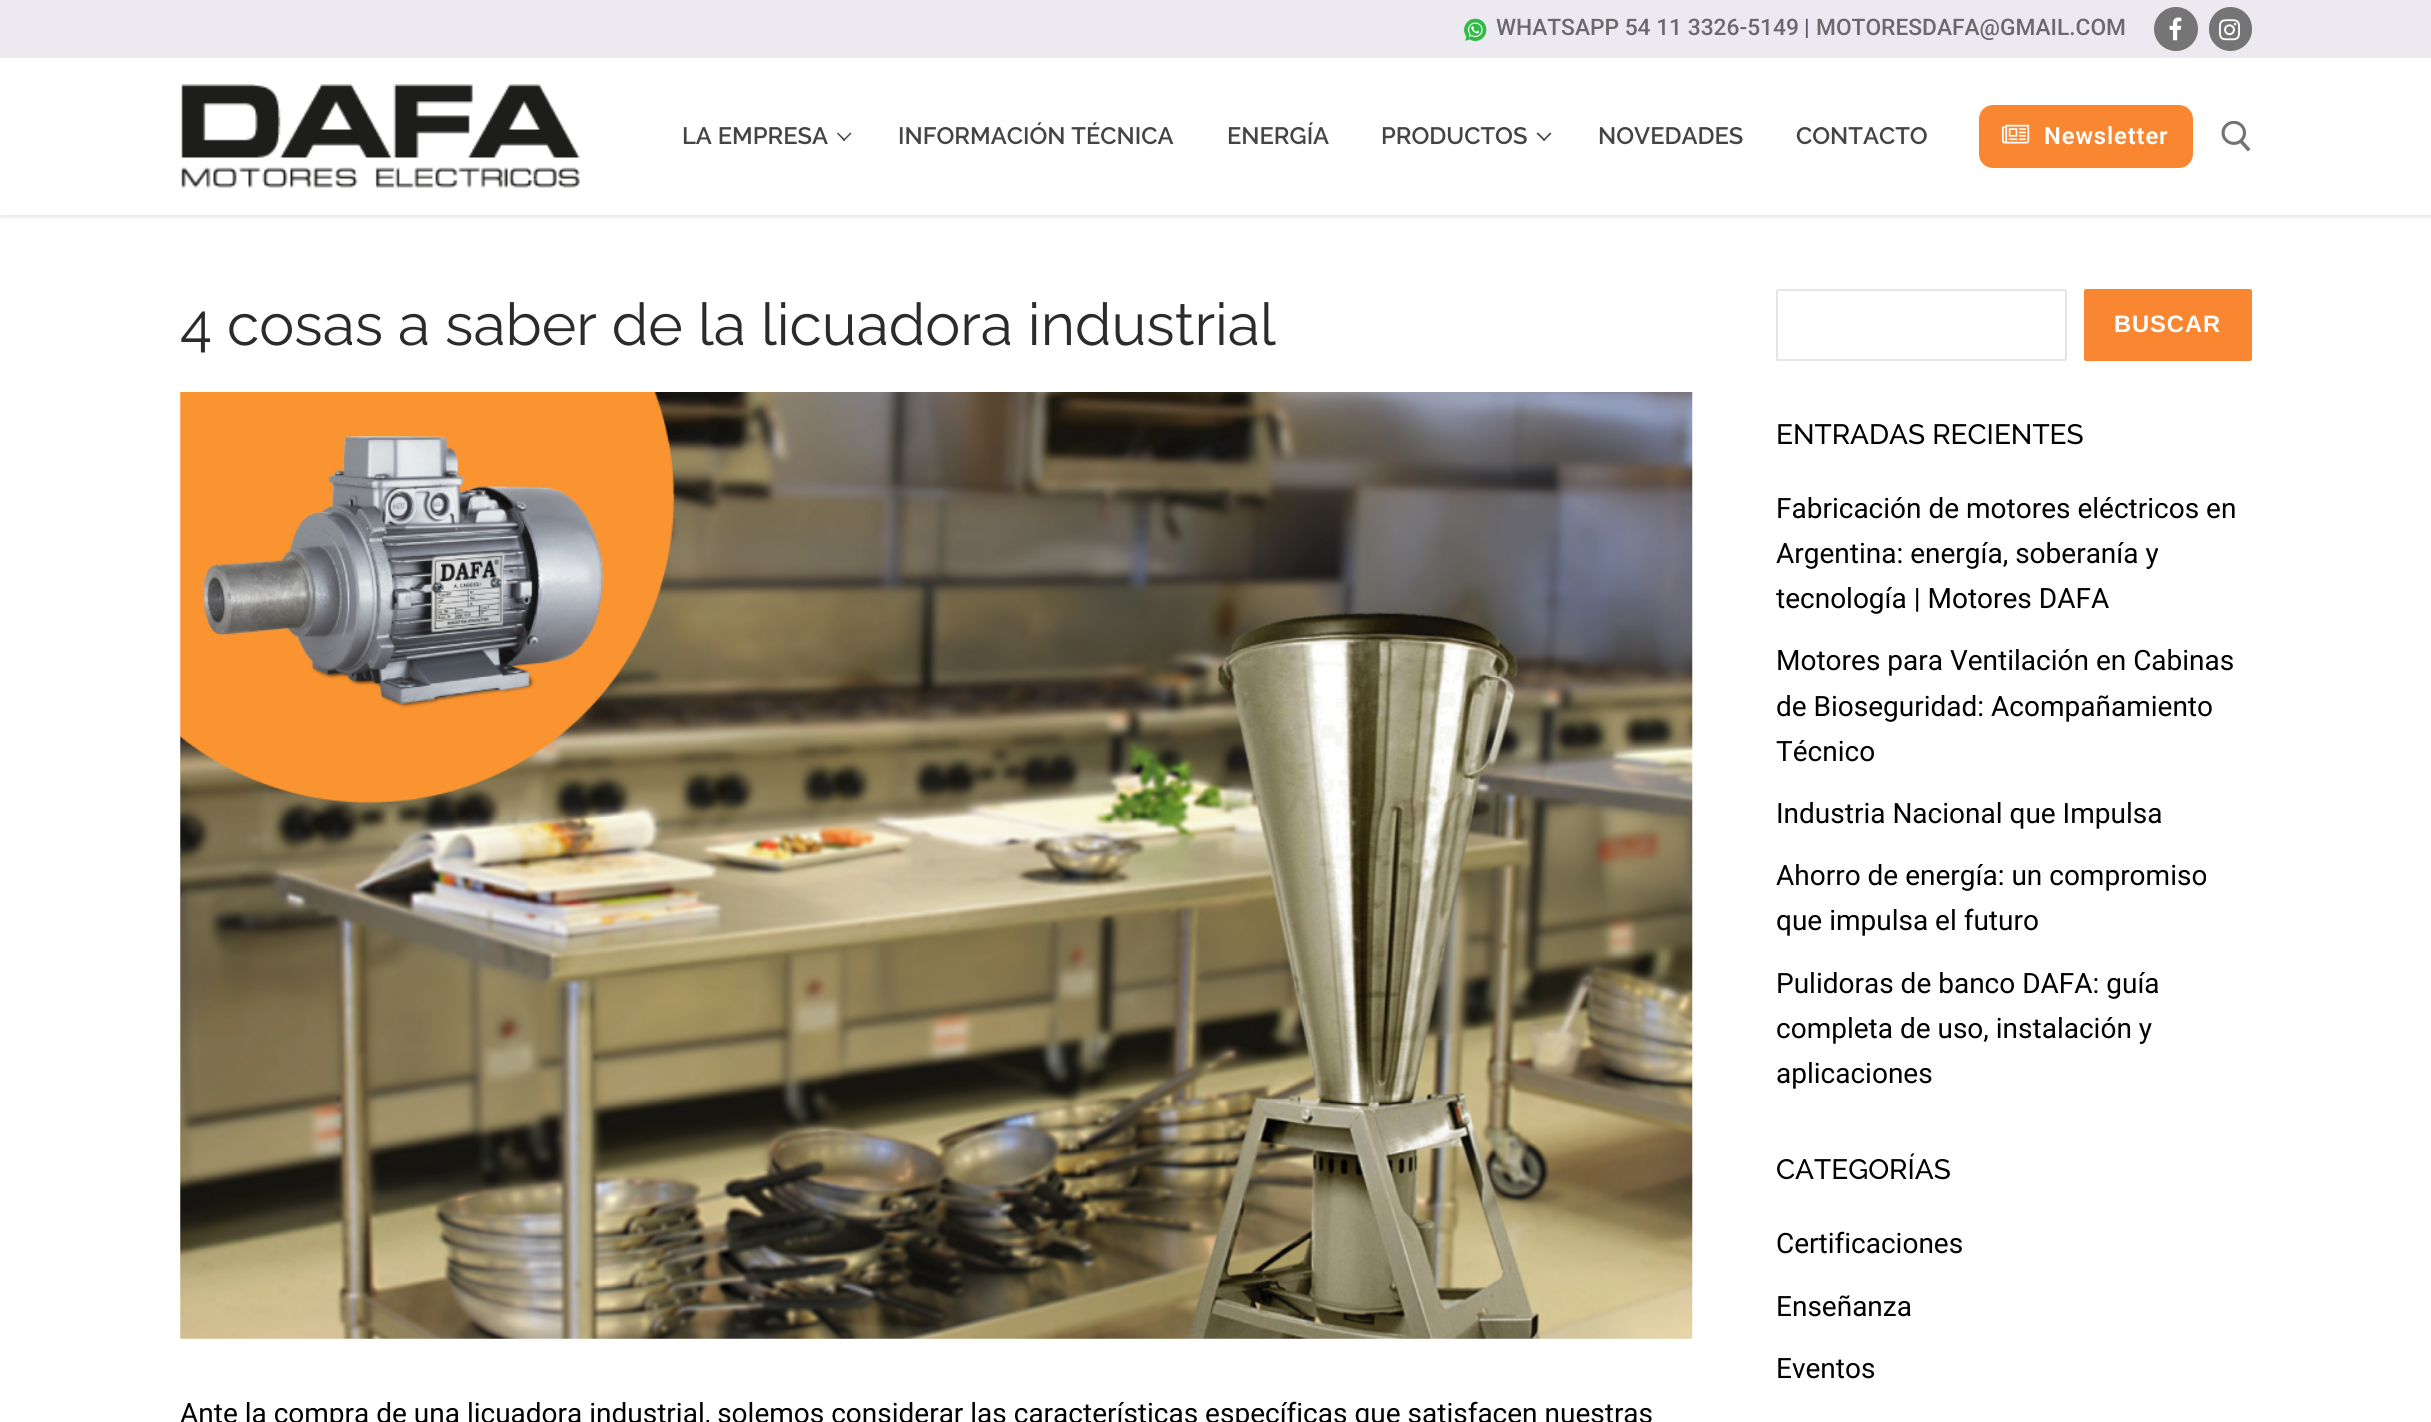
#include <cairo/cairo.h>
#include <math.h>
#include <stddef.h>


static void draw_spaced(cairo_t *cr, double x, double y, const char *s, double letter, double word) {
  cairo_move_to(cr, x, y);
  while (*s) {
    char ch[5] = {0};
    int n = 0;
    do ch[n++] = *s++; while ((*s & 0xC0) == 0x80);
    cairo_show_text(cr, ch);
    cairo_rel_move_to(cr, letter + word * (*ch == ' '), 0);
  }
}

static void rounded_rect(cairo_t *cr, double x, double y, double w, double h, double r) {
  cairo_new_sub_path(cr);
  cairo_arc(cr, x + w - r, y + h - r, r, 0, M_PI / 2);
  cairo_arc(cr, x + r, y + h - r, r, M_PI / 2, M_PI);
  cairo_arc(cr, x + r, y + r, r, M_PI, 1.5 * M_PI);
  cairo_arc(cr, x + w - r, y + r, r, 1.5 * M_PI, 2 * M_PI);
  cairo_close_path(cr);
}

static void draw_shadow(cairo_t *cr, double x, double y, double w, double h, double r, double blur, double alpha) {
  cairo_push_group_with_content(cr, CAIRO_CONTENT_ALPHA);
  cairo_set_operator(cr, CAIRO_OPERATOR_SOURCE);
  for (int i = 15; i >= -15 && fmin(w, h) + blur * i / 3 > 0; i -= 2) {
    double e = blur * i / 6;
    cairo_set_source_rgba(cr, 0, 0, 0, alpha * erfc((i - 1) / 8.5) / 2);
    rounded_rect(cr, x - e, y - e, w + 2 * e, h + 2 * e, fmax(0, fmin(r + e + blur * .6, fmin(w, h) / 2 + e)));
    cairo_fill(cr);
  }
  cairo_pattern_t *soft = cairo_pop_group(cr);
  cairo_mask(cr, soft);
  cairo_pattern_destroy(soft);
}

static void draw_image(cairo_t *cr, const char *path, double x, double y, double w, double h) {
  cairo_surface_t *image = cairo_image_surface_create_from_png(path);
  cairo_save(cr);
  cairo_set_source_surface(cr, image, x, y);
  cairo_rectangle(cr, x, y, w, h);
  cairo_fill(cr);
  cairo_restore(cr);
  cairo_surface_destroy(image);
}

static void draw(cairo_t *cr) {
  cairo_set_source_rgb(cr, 1, 1, 1);
  cairo_paint(cr);
  cairo_set_source_rgb(cr, 236 / 255.0, 234 / 255.0, 240 / 255.0);
  cairo_rectangle(cr, 0, 0, 2431, 58);
  cairo_fill(cr);
  draw_image(cr, "images/1.png", 1463, 18, 24, 24);
  cairo_set_source_rgb(cr, 117 / 255.0, 117 / 255.0, 117 / 255.0);
  cairo_arc(cr, 2176, 29, 22, 0, 2 * M_PI);
  cairo_fill(cr);
  draw_image(cr, "images/2.png", 2169, 17, 13, 24);
  rounded_rect(cr, 2209, 7, 43, 44, 21.5);
  cairo_fill(cr);
  draw_image(cr, "images/3.png", 2219, 19, 21, 22);
  cairo_save(cr);
  cairo_set_fill_rule(cr, CAIRO_FILL_RULE_EVEN_ODD);
  cairo_new_path(cr);
  cairo_move_to(cr, 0, 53);
  cairo_line_to(cr, 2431, 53);
  cairo_line_to(cr, 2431, 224);
  cairo_line_to(cr, 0, 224);
  cairo_close_path(cr);
  cairo_move_to(cr, 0, 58);
  cairo_line_to(cr, 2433, 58);
  cairo_line_to(cr, 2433, 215);
  cairo_line_to(cr, 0, 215);
  cairo_close_path(cr);
  cairo_clip(cr);
  cairo_set_source_rgb(cr, 225 / 255.0, 229 / 255.0, 234 / 255.0);
  draw_shadow(cr, 0, 60, 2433, 157, 0, 2, 1);
  cairo_restore(cr);
  draw_image(cr, "images/4.png", 181, 84, 399, 104);
  cairo_set_source_rgb(cr, 67 / 255.0, 67 / 255.0, 72 / 255.0);
  cairo_new_path(cr);
  cairo_move_to(cr, 844, 141);
  cairo_line_to(cr, 837, 133.5);
  cairo_line_to(cr, 838, 132.5);
  cairo_line_to(cr, 845.5, 140);
  cairo_close_path(cr);
  cairo_fill(cr);
  cairo_new_path(cr);
  cairo_move_to(cr, 844, 141);
  cairo_line_to(cr, 843, 140);
  cairo_line_to(cr, 850.5, 132.5);
  cairo_line_to(cr, 851.5, 133.5);
  cairo_close_path(cr);
  cairo_fill(cr);
  cairo_new_path(cr);
  cairo_move_to(cr, 1544, 141);
  cairo_line_to(cr, 1536.5, 133.5);
  cairo_line_to(cr, 1538, 132.5);
  cairo_line_to(cr, 1545.5, 140);
  cairo_close_path(cr);
  cairo_fill(cr);
  cairo_new_path(cr);
  cairo_move_to(cr, 1544, 141);
  cairo_line_to(cr, 1543, 140);
  cairo_line_to(cr, 1550, 132.5);
  cairo_line_to(cr, 1551.5, 133.5);
  cairo_close_path(cr);
  cairo_fill(cr);
  cairo_set_source_rgb(cr, 249 / 255.0, 134 / 255.0, 48 / 255.0);
  rounded_rect(cr, 1979, 105, 214, 63, 14);
  cairo_fill(cr);
  draw_image(cr, "images/5.png", 2002, 124, 28, 20);
  draw_image(cr, "images/6.png", 2221, 121, 30, 31);
  draw_image(cr, "images/7.png", 180, 392, 1513, 947);
  rounded_rect(cr, 1777, 290, 289, 70, 1);
  cairo_set_source_rgb(cr, 229 / 255.0, 229 / 255.0, 229 / 255.0);
  cairo_stroke(cr);
  cairo_set_source_rgb(cr, 249 / 255.0, 134 / 255.0, 48 / 255.0);
  rounded_rect(cr, 2084, 289, 168, 72, 2);
  cairo_fill(cr);
  cairo_select_font_face(cr, "Roboto Medium", CAIRO_FONT_SLANT_NORMAL, CAIRO_FONT_WEIGHT_NORMAL);
  cairo_set_font_size(cr, 22.75);
  cairo_set_source_rgb(cr, 106 / 255.0, 105 / 255.0, 108 / 255.0);
  cairo_move_to(cr, 1496, 35);
  cairo_show_text(cr, "WHATSAPP 54 11 3326-5149");
  cairo_set_source_rgb(cr, 94 / 255.0, 94 / 255.0, 96 / 255.0);
  cairo_move_to(cr, 1804, 35);
  cairo_show_text(cr, "|");
  cairo_set_source_rgb(cr, 106 / 255.0, 105 / 255.0, 108 / 255.0);
  cairo_move_to(cr, 1816, 35);
  cairo_show_text(cr, "MOTORESDAFA@GMAIL.COM");
  cairo_select_font_face(cr, "Raleway SemiBold", CAIRO_FONT_SLANT_NORMAL, CAIRO_FONT_WEIGHT_NORMAL);
  cairo_set_font_size(cr, 23.75);
  cairo_set_source_rgb(cr, 67 / 255.0, 67 / 255.0, 72 / 255.0);
  cairo_move_to(cr, 682, 144);
  cairo_show_text(cr, "LA EMPRESA");
  cairo_move_to(cr, 898, 144);
  cairo_show_text(cr, "INFORMACIÓN TÉCNICA");
  cairo_move_to(cr, 1227, 144);
  cairo_show_text(cr, "ENERGÍA");
  cairo_move_to(cr, 1381, 144);
  cairo_show_text(cr, "PRODUCTOS");
  cairo_move_to(cr, 1598, 144);
  cairo_show_text(cr, "NOVEDADES");
  cairo_move_to(cr, 1796, 144);
  cairo_show_text(cr, "CONTACTO");
  cairo_select_font_face(cr, "Roboto SemiBold", CAIRO_FONT_SLANT_NORMAL, CAIRO_FONT_WEIGHT_NORMAL);
  cairo_set_source_rgb(cr, 1, 1, 1);
  draw_spaced(cr, 2044, 144, "Newsletter", 0.9, 0);
  cairo_select_font_face(cr, "Raleway", CAIRO_FONT_SLANT_NORMAL, CAIRO_FONT_WEIGHT_NORMAL);
  cairo_set_font_size(cr, 58.75);
  cairo_set_source_rgb(cr, 43 / 255.0, 43 / 255.0, 43 / 255.0);
  cairo_move_to(cr, 180, 345);
  cairo_show_text(cr, "4 cosas a saber de la licuadora industrial");
  cairo_select_font_face(cr, "Roboto", CAIRO_FONT_SLANT_NORMAL, CAIRO_FONT_WEIGHT_NORMAL);
  cairo_set_font_size(cr, 28);
  cairo_set_source_rgb(cr, 0, 0, 0);
  cairo_move_to(cr, 180, 1423);
  cairo_show_text(cr, "Ante la compra de una licuadora industrial, solemos considerar las características específicas que satisfacen nuestras");
  cairo_select_font_face(cr, "Liberation Sans", CAIRO_FONT_SLANT_NORMAL, CAIRO_FONT_WEIGHT_BOLD);
  cairo_set_font_size(cr, 23.75);
  cairo_set_source_rgb(cr, 1, 1, 1);
  draw_spaced(cr, 2114, 332, "BUSCAR", 0.9, 0);
  cairo_select_font_face(cr, "Raleway Medium", CAIRO_FONT_SLANT_NORMAL, CAIRO_FONT_WEIGHT_NORMAL);
  cairo_set_font_size(cr, 28);
  cairo_set_source_rgb(cr, 0, 0, 0);
  cairo_move_to(cr, 1776, 444);
  cairo_show_text(cr, "ENTRADAS RECIENTES");
  cairo_select_font_face(cr, "Roboto", CAIRO_FONT_SLANT_NORMAL, CAIRO_FONT_WEIGHT_NORMAL);
  cairo_move_to(cr, 1776, 518);
  cairo_show_text(cr, "Fabricación de motores eléctricos en");
  cairo_move_to(cr, 1776, 563);
  cairo_show_text(cr, "Argentina: energía, soberanía y");
  cairo_move_to(cr, 1776, 608);
  cairo_show_text(cr, "tecnología | Motores DAFA");
  cairo_move_to(cr, 1776, 670);
  cairo_show_text(cr, "Motores para Ventilación en Cabinas");
  cairo_move_to(cr, 1776, 716);
  cairo_show_text(cr, "de Bioseguridad: Acompañamiento");
  cairo_move_to(cr, 1776, 761);
  cairo_show_text(cr, "Técnico");
  cairo_move_to(cr, 1776, 823);
  cairo_show_text(cr, "Industria Nacional que Impulsa");
  cairo_move_to(cr, 1776, 885);
  cairo_show_text(cr, "Ahorro de energía: un compromiso");
  cairo_move_to(cr, 1776, 930);
  cairo_show_text(cr, "que impulsa el futuro");
  cairo_move_to(cr, 1776, 993);
  cairo_show_text(cr, "Pulidoras de banco DAFA: guía");
  cairo_move_to(cr, 1776, 1038);
  cairo_show_text(cr, "completa de uso, instalación y");
  cairo_move_to(cr, 1776, 1083);
  cairo_show_text(cr, "aplicaciones");
  cairo_select_font_face(cr, "Raleway Medium", CAIRO_FONT_SLANT_NORMAL, CAIRO_FONT_WEIGHT_NORMAL);
  cairo_move_to(cr, 1776, 1179);
  cairo_show_text(cr, "CATEGORÍAS");
  cairo_select_font_face(cr, "Roboto", CAIRO_FONT_SLANT_NORMAL, CAIRO_FONT_WEIGHT_NORMAL);
  cairo_move_to(cr, 1776, 1253);
  cairo_show_text(cr, "Certificaciones");
  cairo_move_to(cr, 1776, 1316);
  cairo_show_text(cr, "Enseñanza");
  cairo_move_to(cr, 1776, 1378);
  cairo_show_text(cr, "Eventos");
}

int main(void) {
  cairo_surface_t *surface = cairo_image_surface_create(CAIRO_FORMAT_RGB24, 2431, 1422);
  cairo_t *cr = cairo_create(surface);
  cairo_font_options_t *options = cairo_font_options_create();
  cairo_font_options_set_hint_metrics(options, CAIRO_HINT_METRICS_OFF);
  cairo_font_options_set_hint_style(options, CAIRO_HINT_STYLE_NONE);
  cairo_set_font_options(cr, options);
  cairo_set_miter_limit(cr, 4);
  draw(cr);
  cairo_surface_write_to_png(surface, "out.png");
  cairo_font_options_destroy(options);
  cairo_destroy(cr);
  cairo_surface_destroy(surface);
  return 0;
}
